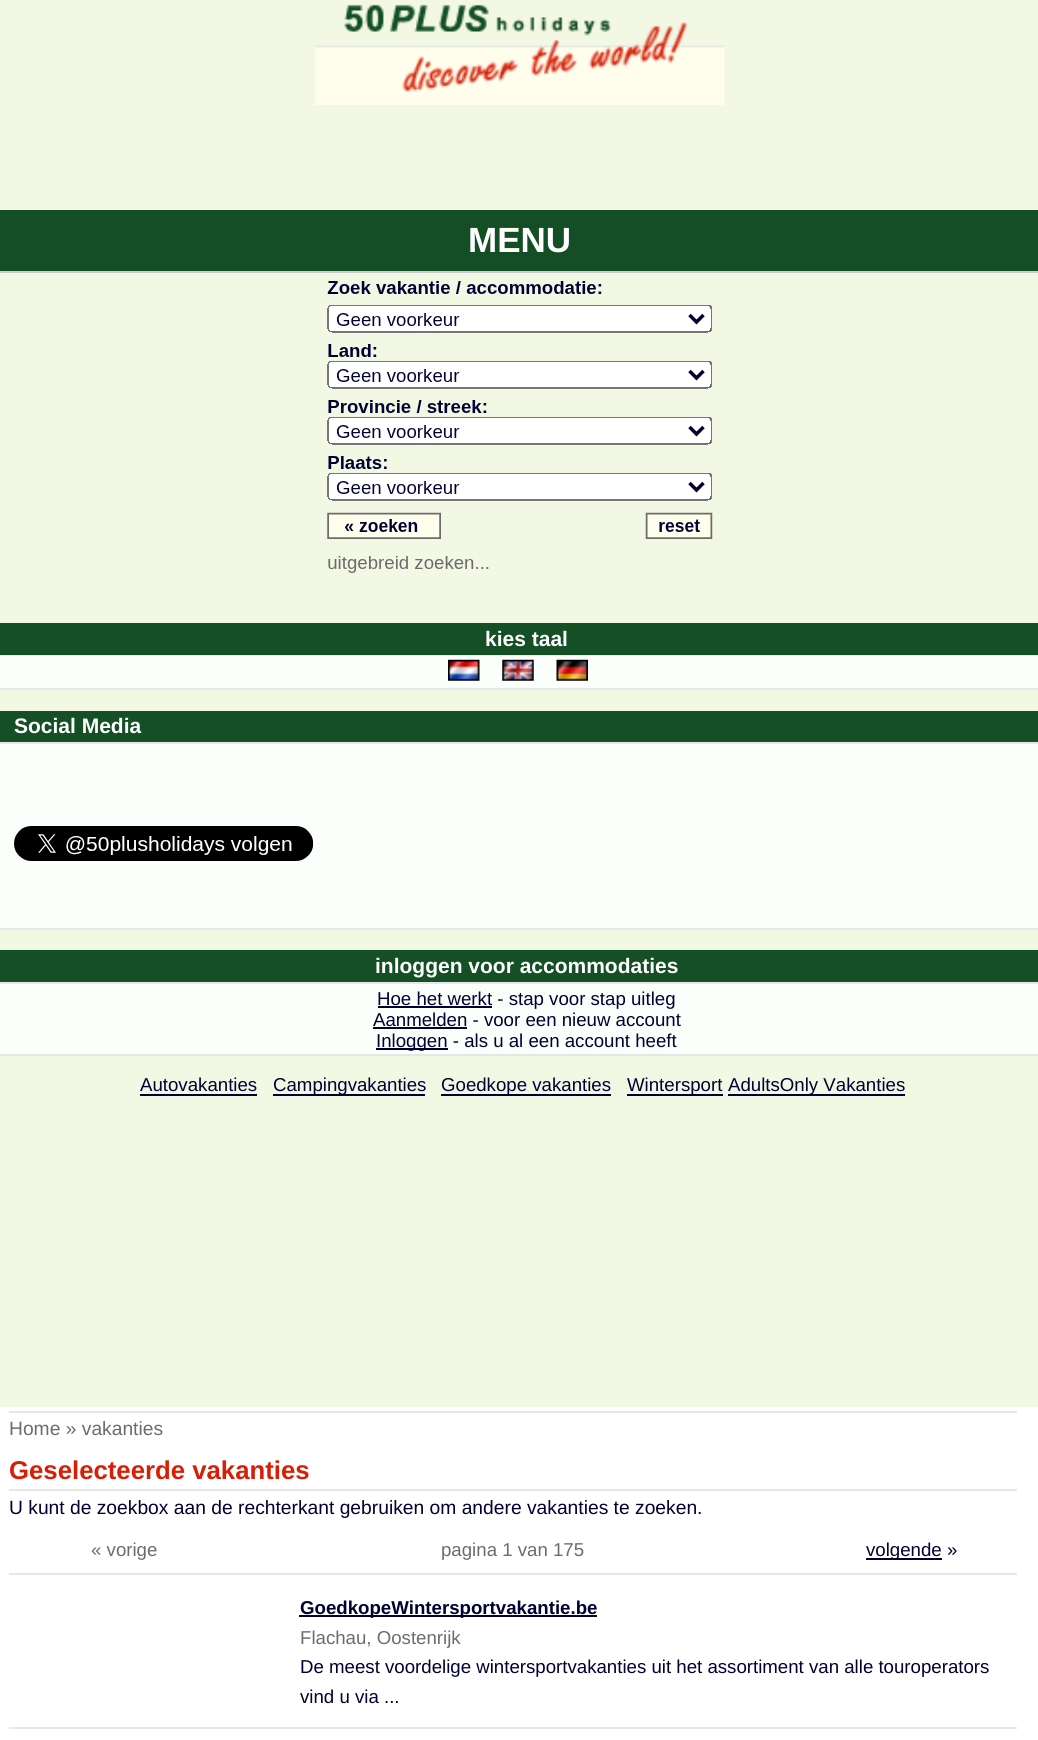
#include <cairo/cairo.h>
#include <math.h>
#include <stddef.h>


static void draw_image(cairo_t *cr, const char *path, double x, double y, double w, double h) {
  cairo_surface_t *image = cairo_image_surface_create_from_png(path);
  cairo_save(cr);
  cairo_set_source_surface(cr, image, x, y);
  cairo_rectangle(cr, x, y, w, h);
  cairo_fill(cr);
  cairo_restore(cr);
  cairo_surface_destroy(image);
}

static void draw(cairo_t *cr) {
  cairo_set_source_rgb(cr, 1, 1, 1);
  cairo_paint(cr);
  cairo_set_source_rgb(cr, 242 / 255.0, 248 / 255.0, 227 / 255.0);
  cairo_rectangle(cr, 0, 0, 1038, 210);
  cairo_fill(cr);
  draw_image(cr, "images/1.png", 315, 4, 410, 101);
  cairo_set_source_rgb(cr, 19 / 255.0, 78 / 255.0, 36 / 255.0);
  cairo_rectangle(cr, 0, 210, 1038, 61);
  cairo_fill(cr);
  cairo_set_source_rgb(cr, 204 / 255.0, 204 / 255.0, 204 / 255.0);
  cairo_rectangle(cr, 0, 271, 1038, 2);
  cairo_fill(cr);
  cairo_set_source_rgb(cr, 242 / 255.0, 248 / 255.0, 227 / 255.0);
  cairo_rectangle(cr, 0, 273, 1038, 1134);
  cairo_fill(cr);
  draw_image(cr, "images/2.png", 327, 281, 386, 292);
  cairo_set_source_rgb(cr, 20 / 255.0, 79 / 255.0, 37 / 255.0);
  cairo_rectangle(cr, 0, 623, 1038, 32);
  cairo_fill(cr);
  cairo_set_source_rgb(cr, 231 / 255.0, 231 / 255.0, 231 / 255.0);
  cairo_rectangle(cr, 0, 655, 1038, 1);
  cairo_fill(cr);
  cairo_set_source_rgb(cr, 251 / 255.0, 1, 252 / 255.0);
  cairo_rectangle(cr, 0, 656, 1038, 32);
  cairo_fill(cr);
  cairo_set_source_rgb(cr, 231 / 255.0, 231 / 255.0, 231 / 255.0);
  cairo_rectangle(cr, 0, 688, 1038, 2);
  cairo_fill(cr);
  draw_image(cr, "images/3.png", 448, 659, 32, 22);
  draw_image(cr, "images/4.png", 502, 659, 32, 22);
  draw_image(cr, "images/5.png", 556, 659, 32, 22);
  cairo_set_source_rgb(cr, 20 / 255.0, 79 / 255.0, 37 / 255.0);
  cairo_rectangle(cr, 0, 711, 1038, 31);
  cairo_fill(cr);
  cairo_set_source_rgb(cr, 231 / 255.0, 231 / 255.0, 231 / 255.0);
  cairo_rectangle(cr, 0, 742, 1038, 2);
  cairo_fill(cr);
  cairo_set_source_rgb(cr, 251 / 255.0, 1, 252 / 255.0);
  cairo_rectangle(cr, 0, 744, 1038, 184);
  cairo_fill(cr);
  cairo_set_source_rgb(cr, 231 / 255.0, 231 / 255.0, 231 / 255.0);
  cairo_rectangle(cr, 0, 928, 1038, 2);
  cairo_fill(cr);
  draw_image(cr, "images/6.png", 14, 826, 300, 35);
  cairo_set_source_rgb(cr, 20 / 255.0, 79 / 255.0, 37 / 255.0);
  cairo_rectangle(cr, 0, 950, 1038, 32);
  cairo_fill(cr);
  cairo_set_source_rgb(cr, 231 / 255.0, 231 / 255.0, 231 / 255.0);
  cairo_rectangle(cr, 0, 982, 1038, 2);
  cairo_fill(cr);
  cairo_set_source_rgb(cr, 251 / 255.0, 1, 252 / 255.0);
  cairo_rectangle(cr, 0, 984, 1038, 70);
  cairo_fill(cr);
  cairo_set_source_rgb(cr, 231 / 255.0, 231 / 255.0, 231 / 255.0);
  cairo_rectangle(cr, 0, 1054, 1038, 2);
  cairo_fill(cr);
  cairo_set_source_rgb(cr, 0, 0, 51 / 255.0);
  cairo_rectangle(cr, 378, 1006, 114, 2);
  cairo_fill(cr);
  cairo_rectangle(cr, 373, 1027, 94, 2);
  cairo_fill(cr);
  cairo_rectangle(cr, 376, 1048, 72, 2);
  cairo_fill(cr);
  cairo_rectangle(cr, 140, 1094, 117, 2);
  cairo_fill(cr);
  cairo_rectangle(cr, 273, 1094, 152, 2);
  cairo_fill(cr);
  cairo_rectangle(cr, 441, 1094, 170, 2);
  cairo_fill(cr);
  cairo_rectangle(cr, 627, 1094, 96, 2);
  cairo_fill(cr);
  cairo_rectangle(cr, 728, 1094, 177, 2);
  cairo_fill(cr);
  cairo_set_source_rgb(cr, 231 / 255.0, 231 / 255.0, 231 / 255.0);
  cairo_rectangle(cr, 9, 1411, 1008, 2);
  cairo_fill(cr);
  cairo_rectangle(cr, 9, 1489, 1008, 2);
  cairo_fill(cr);
  cairo_set_source_rgb(cr, 0, 0, 51 / 255.0);
  cairo_rectangle(cr, 866, 1558, 76, 2);
  cairo_fill(cr);
  cairo_set_source_rgb(cr, 231 / 255.0, 231 / 255.0, 231 / 255.0);
  cairo_rectangle(cr, 9, 1573, 1008, 2);
  cairo_fill(cr);
  cairo_set_source_rgb(cr, 0, 0, 51 / 255.0);
  cairo_rectangle(cr, 299, 1615, 298, 2);
  cairo_fill(cr);
  cairo_set_source_rgb(cr, 231 / 255.0, 231 / 255.0, 231 / 255.0);
  cairo_rectangle(cr, 9, 1727, 1008, 2);
  cairo_fill(cr);
  cairo_select_font_face(cr, "Liberation Sans", CAIRO_FONT_SLANT_NORMAL, CAIRO_FONT_WEIGHT_BOLD);
  cairo_set_font_size(cr, 35);
  cairo_set_source_rgb(cr, 1, 1, 1);
  cairo_move_to(cr, 468, 252);
  cairo_show_text(cr, "MENU");
  cairo_set_font_size(cr, 21);
  cairo_move_to(cr, 485, 646);
  cairo_show_text(cr, "kies taal");
  cairo_move_to(cr, 14, 733);
  cairo_show_text(cr, "Social Media");
  cairo_move_to(cr, 375, 973);
  cairo_show_text(cr, "inloggen voor accommodaties");
  cairo_select_font_face(cr, "Liberation Sans", CAIRO_FONT_SLANT_NORMAL, CAIRO_FONT_WEIGHT_NORMAL);
  cairo_set_font_size(cr, 18.65);
  cairo_set_source_rgb(cr, 0, 0, 51 / 255.0);
  cairo_move_to(cr, 377, 1005);
  cairo_show_text(cr, "Hoe het werkt - stap voor stap uitleg");
  cairo_move_to(cr, 373, 1026);
  cairo_show_text(cr, "Aanmelden - voor een nieuw account");
  cairo_move_to(cr, 376, 1047);
  cairo_show_text(cr, "Inloggen - als u al een account heeft");
  cairo_move_to(cr, 140, 1091);
  cairo_show_text(cr, "Autovakanties");
  cairo_move_to(cr, 273, 1091);
  cairo_show_text(cr, "Campingvakanties");
  cairo_move_to(cr, 441, 1091);
  cairo_show_text(cr, "Goedkope vakanties");
  cairo_move_to(cr, 627, 1091);
  cairo_show_text(cr, "Wintersport");
  cairo_move_to(cr, 728, 1091);
  cairo_show_text(cr, "AdultsOnly Vakanties");
  cairo_set_font_size(cr, 19.25);
  cairo_set_source_rgb(cr, 108 / 255.0, 108 / 255.0, 108 / 255.0);
  cairo_move_to(cr, 9, 1435);
  cairo_show_text(cr, "Home » vakanties");
  cairo_select_font_face(cr, "Liberation Sans", CAIRO_FONT_SLANT_NORMAL, CAIRO_FONT_WEIGHT_BOLD);
  cairo_set_font_size(cr, 25.75);
  cairo_set_source_rgb(cr, 216 / 255.0, 30 / 255.0, 5 / 255.0);
  cairo_move_to(cr, 9, 1479);
  cairo_show_text(cr, "Geselecteerde vakanties");
  cairo_select_font_face(cr, "Liberation Sans", CAIRO_FONT_SLANT_NORMAL, CAIRO_FONT_WEIGHT_NORMAL);
  cairo_set_font_size(cr, 19.25);
  cairo_set_source_rgb(cr, 0, 0, 51 / 255.0);
  cairo_move_to(cr, 9, 1514);
  cairo_show_text(cr, "U kunt de zoekbox aan de rechterkant gebruiken om andere vakanties te zoeken.");
  cairo_set_font_size(cr, 18.65);
  cairo_set_source_rgb(cr, 108 / 255.0, 108 / 255.0, 108 / 255.0);
  cairo_move_to(cr, 91, 1556);
  cairo_show_text(cr, "« vorige");
  cairo_move_to(cr, 441, 1556);
  cairo_show_text(cr, "pagina 1 van 175");
  cairo_set_source_rgb(cr, 0, 0, 51 / 255.0);
  cairo_move_to(cr, 866, 1556);
  cairo_show_text(cr, "volgende »");
  cairo_select_font_face(cr, "Liberation Sans", CAIRO_FONT_SLANT_NORMAL, CAIRO_FONT_WEIGHT_BOLD);
  cairo_move_to(cr, 300, 1614);
  cairo_show_text(cr, "GoedkopeWintersportvakantie.be");
  cairo_select_font_face(cr, "Liberation Sans", CAIRO_FONT_SLANT_NORMAL, CAIRO_FONT_WEIGHT_NORMAL);
  cairo_set_source_rgb(cr, 108 / 255.0, 108 / 255.0, 108 / 255.0);
  cairo_move_to(cr, 300, 1644);
  cairo_show_text(cr, "Flachau, Oostenrijk");
  cairo_set_source_rgb(cr, 0, 0, 51 / 255.0);
  cairo_move_to(cr, 300, 1673);
  cairo_show_text(cr, "De meest voordelige wintersportvakanties uit het assortiment van alle touroperators");
  cairo_move_to(cr, 300, 1703);
  cairo_show_text(cr, "vind u via ...");
}

int main(void) {
  cairo_surface_t *surface = cairo_image_surface_create(CAIRO_FORMAT_RGB24, 1038, 1740);
  cairo_t *cr = cairo_create(surface);
  cairo_font_options_t *options = cairo_font_options_create();
  cairo_font_options_set_hint_metrics(options, CAIRO_HINT_METRICS_OFF);
  cairo_font_options_set_hint_style(options, CAIRO_HINT_STYLE_NONE);
  cairo_set_font_options(cr, options);
  cairo_set_miter_limit(cr, 4);
  draw(cr);
  cairo_surface_write_to_png(surface, "out.png");
  cairo_font_options_destroy(options);
  cairo_destroy(cr);
  cairo_surface_destroy(surface);
  return 0;
}
